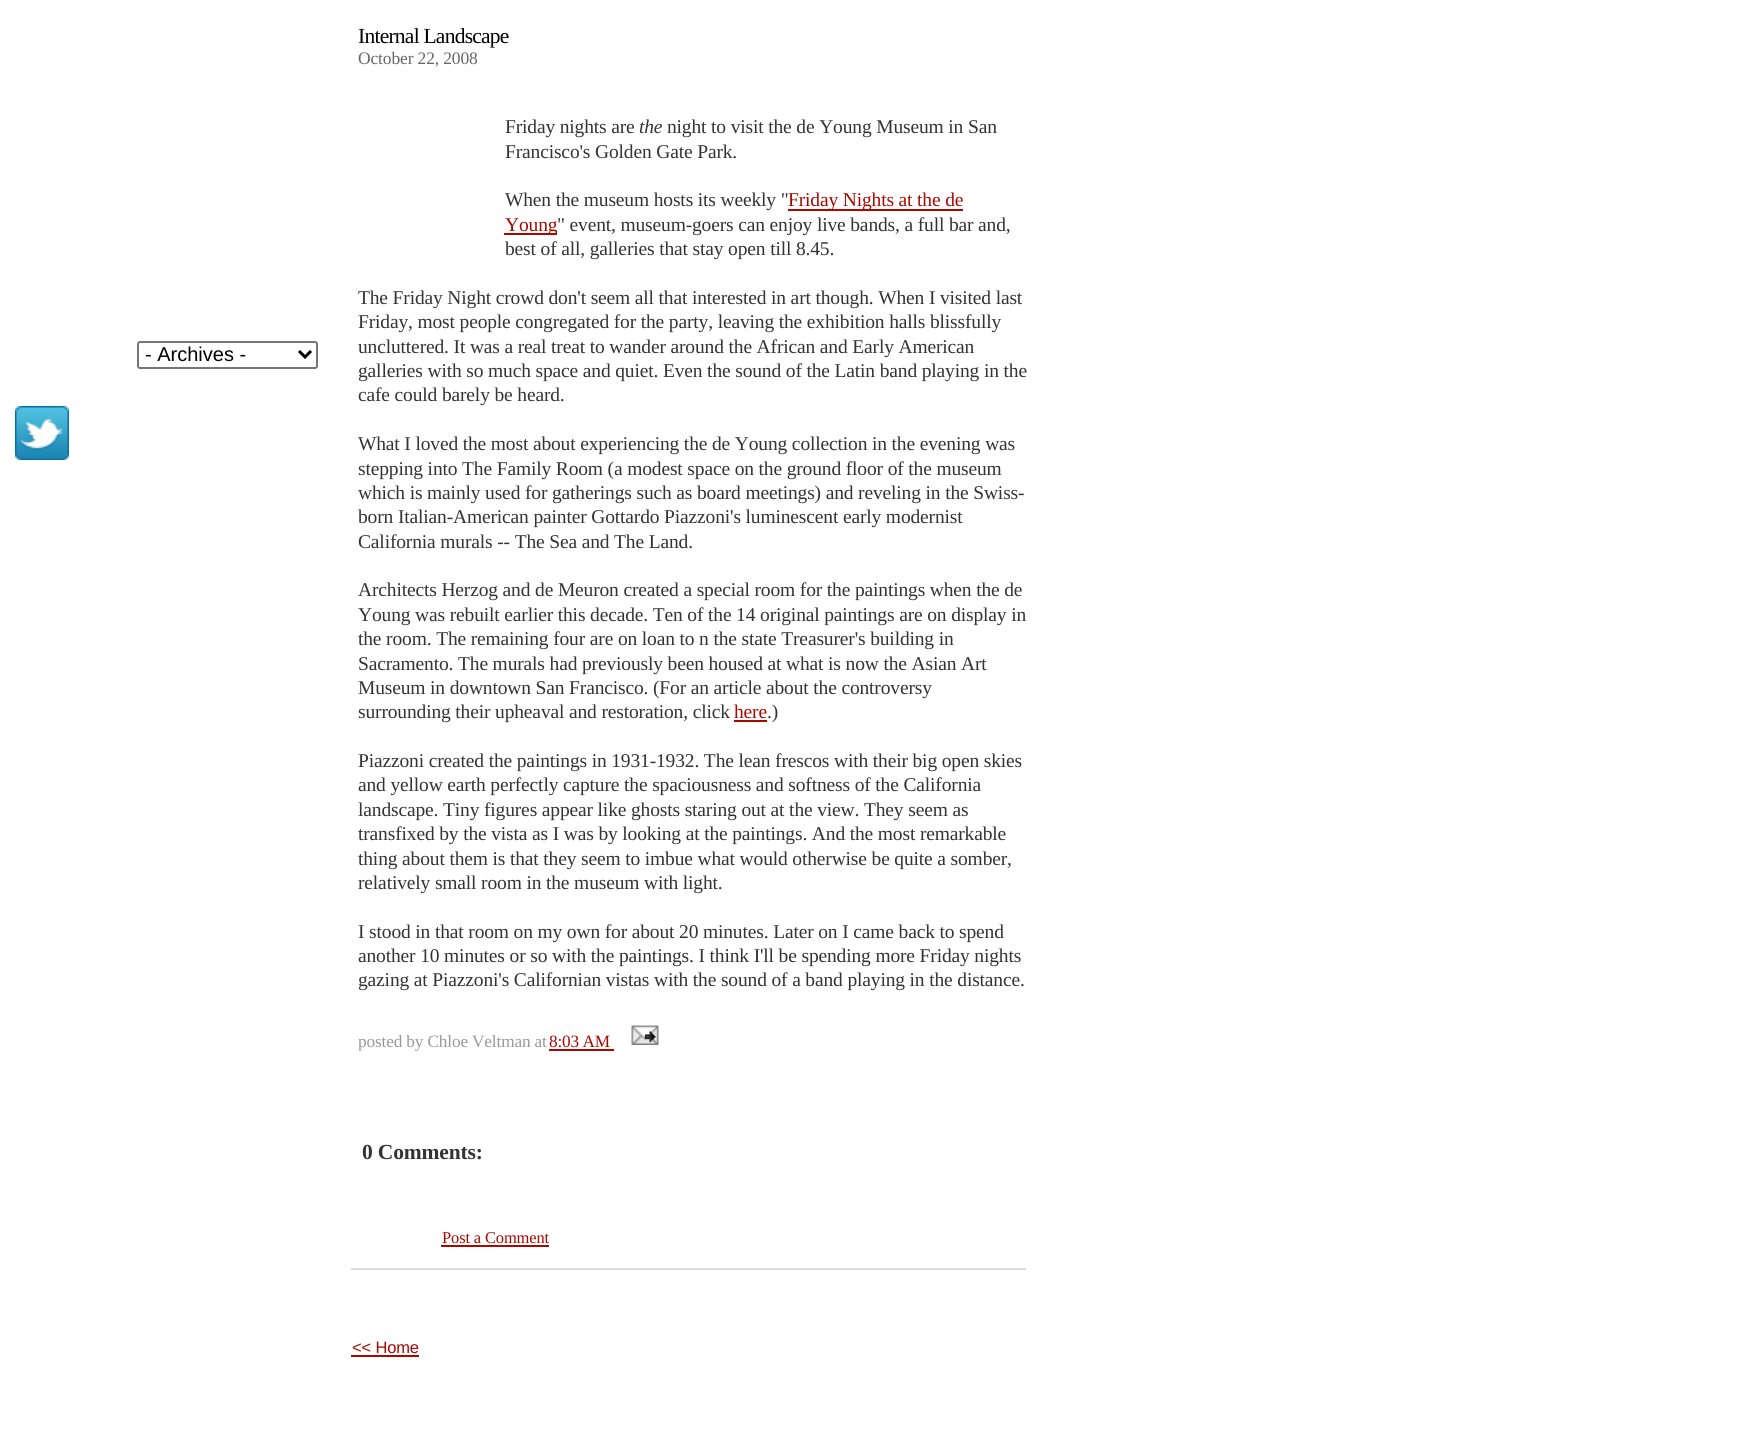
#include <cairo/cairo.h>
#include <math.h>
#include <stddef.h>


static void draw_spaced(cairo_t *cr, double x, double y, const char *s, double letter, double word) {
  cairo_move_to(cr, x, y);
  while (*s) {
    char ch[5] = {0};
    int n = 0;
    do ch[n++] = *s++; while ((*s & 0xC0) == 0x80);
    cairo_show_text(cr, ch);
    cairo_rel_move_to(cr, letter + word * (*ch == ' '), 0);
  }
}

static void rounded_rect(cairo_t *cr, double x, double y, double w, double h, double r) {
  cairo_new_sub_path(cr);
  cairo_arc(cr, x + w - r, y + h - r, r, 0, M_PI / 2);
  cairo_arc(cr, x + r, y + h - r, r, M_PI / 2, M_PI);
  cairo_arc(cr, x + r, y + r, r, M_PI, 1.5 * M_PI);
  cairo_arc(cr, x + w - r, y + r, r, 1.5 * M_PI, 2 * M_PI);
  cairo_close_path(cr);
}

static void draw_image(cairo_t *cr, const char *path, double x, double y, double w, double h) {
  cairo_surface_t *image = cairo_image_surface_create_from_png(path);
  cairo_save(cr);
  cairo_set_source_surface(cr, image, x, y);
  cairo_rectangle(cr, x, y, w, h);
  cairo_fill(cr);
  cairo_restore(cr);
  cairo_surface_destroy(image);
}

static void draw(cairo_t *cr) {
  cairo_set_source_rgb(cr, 1, 1, 1);
  cairo_paint(cr);
  rounded_rect(cr, 138, 342, 179, 26, 2);
  cairo_set_source_rgb(cr, 118 / 255.0, 118 / 255.0, 118 / 255.0);
  cairo_stroke(cr);
  cairo_new_path(cr);
  cairo_move_to(cr, 299, 351);
  cairo_line_to(cr, 305, 357);
  cairo_line_to(cr, 311, 351);
  cairo_set_source_rgb(cr, 0, 0, 0);
  cairo_set_line_width(cr, 3);
  cairo_stroke(cr);
  draw_image(cr, "images/1.png", 15, 406, 54, 54);
  cairo_set_source_rgb(cr, 168 / 255.0, 8 / 255.0, 0);
  cairo_rectangle(cr, 788, 209, 175, 2);
  cairo_fill(cr);
  cairo_rectangle(cr, 504, 233, 53, 2);
  cairo_fill(cr);
  cairo_rectangle(cr, 734, 720, 33, 2);
  cairo_fill(cr);
  cairo_rectangle(cr, 549, 1049, 65, 2);
  cairo_fill(cr);
  draw_image(cr, "images/2.png", 631, 1025, 28, 20);
  cairo_set_source_rgb(cr, 221 / 255.0, 221 / 255.0, 221 / 255.0);
  cairo_rectangle(cr, 351, 1268, 675, 2);
  cairo_fill(cr);
  cairo_set_source_rgb(cr, 168 / 255.0, 8 / 255.0, 0);
  cairo_rectangle(cr, 441, 1245, 108, 2);
  cairo_fill(cr);
  cairo_rectangle(cr, 351, 1355, 68, 2);
  cairo_fill(cr);
  cairo_select_font_face(cr, "Liberation Sans", CAIRO_FONT_SLANT_NORMAL, CAIRO_FONT_WEIGHT_NORMAL);
  cairo_set_font_size(cr, 20);
  cairo_set_source_rgb(cr, 0, 0, 0);
  cairo_move_to(cr, 145, 361);
  cairo_show_text(cr, "- Archives -");
  cairo_select_font_face(cr, "Liberation Serif", CAIRO_FONT_SLANT_NORMAL, CAIRO_FONT_WEIGHT_NORMAL);
  cairo_set_font_size(cr, 21.5);
  draw_spaced(cr, 358, 43, "Internal Landscape", -0.75, 0);
  cairo_set_font_size(cr, 17.5);
  cairo_set_source_rgb(cr, 102 / 255.0, 102 / 255.0, 102 / 255.0);
  draw_spaced(cr, 358, 64, "October 22, 2008", -0.15, 0);
  cairo_set_font_size(cr, 19.5);
  cairo_set_source_rgb(cr, 51 / 255.0, 51 / 255.0, 51 / 255.0);
  draw_spaced(cr, 505, 133, "Friday nights are", -0.15, 0);
  cairo_select_font_face(cr, "Liberation Serif", CAIRO_FONT_SLANT_ITALIC, CAIRO_FONT_WEIGHT_NORMAL);
  draw_spaced(cr, 639, 133, "the", -0.15, 0);
  cairo_select_font_face(cr, "Liberation Serif", CAIRO_FONT_SLANT_NORMAL, CAIRO_FONT_WEIGHT_NORMAL);
  draw_spaced(cr, 667, 133, "night to visit the de Young Museum in San", -0.15, 0);
  draw_spaced(cr, 505, 158, "Francisco's Golden Gate Park.", -0.15, 0);
  draw_spaced(cr, 505, 206, "When the museum hosts its weekly \"", -0.15, 0);
  cairo_set_source_rgb(cr, 168 / 255.0, 8 / 255.0, 0);
  draw_spaced(cr, 788, 206, "Friday Nights at the de", -0.15, 0);
  draw_spaced(cr, 505, 231, "Young", -0.15, 0);
  cairo_set_source_rgb(cr, 51 / 255.0, 51 / 255.0, 51 / 255.0);
  draw_spaced(cr, 557, 231, "\" event, museum-goers can enjoy live bands, a full bar and,", -0.15, 0);
  draw_spaced(cr, 505, 255, "best of all, galleries that stay open till 8.45.", -0.15, 0);
  draw_spaced(cr, 358, 304, "The Friday Night crowd don't seem all that interested in art though. When I visited last", -0.15, 0);
  draw_spaced(cr, 358, 328, "Friday, most people congregated for the party, leaving the exhibition halls blissfully", -0.15, 0);
  draw_spaced(cr, 358, 353, "uncluttered. It was a real treat to wander around the African and Early American", -0.15, 0);
  draw_spaced(cr, 358, 377, "galleries with so much space and quiet. Even the sound of the Latin band playing in the", -0.15, 0);
  draw_spaced(cr, 358, 401, "cafe could barely be heard.", -0.15, 0);
  draw_spaced(cr, 358, 450, "What I loved the most about experiencing the de Young collection in the evening was", -0.15, 0);
  draw_spaced(cr, 358, 475, "stepping into The Family Room (a modest space on the ground floor of the museum", -0.15, 0);
  draw_spaced(cr, 358, 499, "which is mainly used for gatherings such as board meetings) and reveling in the Swiss-", -0.15, 0);
  draw_spaced(cr, 358, 523, "born Italian-American painter Gottardo Piazzoni's luminescent early modernist", -0.15, 0);
  draw_spaced(cr, 358, 548, "California murals -- The Sea and The Land.", -0.15, 0);
  draw_spaced(cr, 358, 596, "Architects Herzog and de Meuron created a special room for the paintings when the de", -0.15, 0);
  draw_spaced(cr, 358, 621, "Young was rebuilt earlier this decade. Ten of the 14 original paintings are on display in", -0.15, 0);
  draw_spaced(cr, 358, 645, "the room. The remaining four are on loan to n the state Treasurer's building in", -0.15, 0);
  draw_spaced(cr, 358, 670, "Sacramento. The murals had previously been housed at what is now the Asian Art", -0.15, 0);
  draw_spaced(cr, 358, 694, "Museum in downtown San Francisco. (For an article about the controversy", -0.15, 0);
  draw_spaced(cr, 358, 718, "surrounding their upheaval and restoration, click", -0.15, 0);
  cairo_set_source_rgb(cr, 168 / 255.0, 8 / 255.0, 0);
  draw_spaced(cr, 734, 718, "here", -0.15, 0);
  cairo_set_source_rgb(cr, 51 / 255.0, 51 / 255.0, 51 / 255.0);
  draw_spaced(cr, 767, 718, ".)", -0.15, 0);
  draw_spaced(cr, 358, 767, "Piazzoni created the paintings in 1931-1932. The lean frescos with their big open skies", -0.15, 0);
  draw_spaced(cr, 358, 791, "and yellow earth perfectly capture the spaciousness and softness of the California", -0.15, 0);
  draw_spaced(cr, 358, 816, "landscape. Tiny figures appear like ghosts staring out at the view. They seem as", -0.15, 0);
  draw_spaced(cr, 358, 840, "transfixed by the vista as I was by looking at the paintings. And the most remarkable", -0.15, 0);
  draw_spaced(cr, 358, 865, "thing about them is that they seem to imbue what would otherwise be quite a somber,", -0.15, 0);
  draw_spaced(cr, 358, 889, "relatively small room in the museum with light.", -0.15, 0);
  draw_spaced(cr, 358, 938, "I stood in that room on my own for about 20 minutes. Later on I came back to spend", -0.15, 0);
  draw_spaced(cr, 358, 962, "another 10 minutes or so with the paintings. I think I'll be spending more Friday nights", -0.15, 0);
  draw_spaced(cr, 358, 986, "gazing at Piazzoni's Californian vistas with the sound of a band playing in the distance.", -0.15, 0);
  cairo_set_font_size(cr, 17.25);
  cairo_set_source_rgb(cr, 153 / 255.0, 153 / 255.0, 153 / 255.0);
  draw_spaced(cr, 358, 1047, "posted by Chloe Veltman at", -0.15, 0);
  cairo_set_source_rgb(cr, 168 / 255.0, 8 / 255.0, 0);
  draw_spaced(cr, 549, 1047, "8:03 AM", -0.15, 0);
  cairo_select_font_face(cr, "Liberation Serif", CAIRO_FONT_SLANT_NORMAL, CAIRO_FONT_WEIGHT_BOLD);
  cairo_set_font_size(cr, 21.5);
  cairo_set_source_rgb(cr, 51 / 255.0, 51 / 255.0, 51 / 255.0);
  draw_spaced(cr, 362, 1159, "0 Comments:", -0.15, 0);
  cairo_select_font_face(cr, "Liberation Serif", CAIRO_FONT_SLANT_NORMAL, CAIRO_FONT_WEIGHT_NORMAL);
  cairo_set_font_size(cr, 16.5);
  cairo_set_source_rgb(cr, 168 / 255.0, 8 / 255.0, 0);
  draw_spaced(cr, 442, 1243, "Post a Comment", -0.15, 0);
  cairo_select_font_face(cr, "Liberation Sans", CAIRO_FONT_SLANT_NORMAL, CAIRO_FONT_WEIGHT_NORMAL);
  draw_spaced(cr, 352, 1353, "<< Home", -0.15, 0);
}

int main(void) {
  cairo_surface_t *surface = cairo_image_surface_create(CAIRO_FORMAT_RGB24, 1758, 1445);
  cairo_t *cr = cairo_create(surface);
  cairo_font_options_t *options = cairo_font_options_create();
  cairo_font_options_set_hint_metrics(options, CAIRO_HINT_METRICS_OFF);
  cairo_font_options_set_hint_style(options, CAIRO_HINT_STYLE_NONE);
  cairo_set_font_options(cr, options);
  cairo_set_miter_limit(cr, 4);
  draw(cr);
  cairo_surface_write_to_png(surface, "out.png");
  cairo_font_options_destroy(options);
  cairo_destroy(cr);
  cairo_surface_destroy(surface);
  return 0;
}
